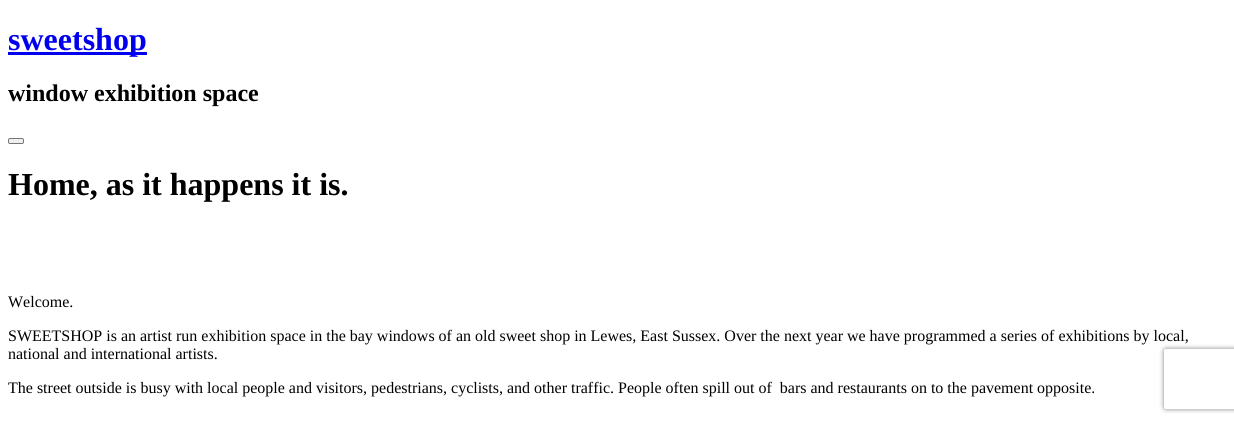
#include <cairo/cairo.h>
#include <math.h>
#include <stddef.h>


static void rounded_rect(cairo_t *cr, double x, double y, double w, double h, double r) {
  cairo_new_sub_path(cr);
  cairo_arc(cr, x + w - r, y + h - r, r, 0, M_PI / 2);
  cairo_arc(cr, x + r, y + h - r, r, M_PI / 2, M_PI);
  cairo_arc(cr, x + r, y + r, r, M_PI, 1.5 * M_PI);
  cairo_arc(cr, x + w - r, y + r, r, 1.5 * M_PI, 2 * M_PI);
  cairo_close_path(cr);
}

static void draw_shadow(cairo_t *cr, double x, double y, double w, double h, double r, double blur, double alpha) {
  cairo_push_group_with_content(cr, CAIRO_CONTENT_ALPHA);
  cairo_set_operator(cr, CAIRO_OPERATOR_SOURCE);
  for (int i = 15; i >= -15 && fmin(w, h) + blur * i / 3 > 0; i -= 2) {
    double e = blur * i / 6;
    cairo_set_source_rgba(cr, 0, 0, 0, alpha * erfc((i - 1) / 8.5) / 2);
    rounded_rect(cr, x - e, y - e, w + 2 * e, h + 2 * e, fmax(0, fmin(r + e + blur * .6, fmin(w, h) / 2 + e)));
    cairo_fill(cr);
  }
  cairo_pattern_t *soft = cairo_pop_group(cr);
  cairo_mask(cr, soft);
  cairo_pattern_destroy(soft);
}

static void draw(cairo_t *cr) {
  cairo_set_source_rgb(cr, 1, 1, 1);
  cairo_paint(cr);
  cairo_set_source_rgb(cr, 0, 0, 238 / 255.0);
  cairo_rectangle(cr, 8, 52, 139, 3);
  cairo_fill(cr);
  cairo_set_source_rgb(cr, 239 / 255.0, 239 / 255.0, 239 / 255.0);
  rounded_rect(cr, 8.5, 138.5, 15, 5, 1.5);
  cairo_fill_preserve(cr);
  cairo_set_source_rgb(cr, 118 / 255.0, 118 / 255.0, 118 / 255.0);
  cairo_set_line_width(cr, 1);
  cairo_stroke(cr);
  cairo_save(cr);
  cairo_set_fill_rule(cr, CAIRO_FILL_RULE_EVEN_ODD);
  cairo_new_path(cr);
  cairo_move_to(cr, 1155, 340);
  cairo_line_to(cr, 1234, 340);
  cairo_line_to(cr, 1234, 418);
  cairo_line_to(cr, 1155, 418);
  cairo_close_path(cr);
  cairo_move_to(cr, 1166, 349);
  cairo_line_to(cr, 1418, 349);
  cairo_curve_to(cr, 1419, 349, 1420, 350, 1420, 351);
  cairo_line_to(cr, 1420, 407);
  cairo_curve_to(cr, 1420, 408, 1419, 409, 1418, 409);
  cairo_line_to(cr, 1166, 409);
  cairo_curve_to(cr, 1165, 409, 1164, 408, 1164, 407);
  cairo_line_to(cr, 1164, 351);
  cairo_curve_to(cr, 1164, 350, 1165, 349, 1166, 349);
  cairo_close_path(cr);
  cairo_clip(cr);
  cairo_set_source_rgb(cr, 128 / 255.0, 128 / 255.0, 128 / 255.0);
  draw_shadow(cr, 1164, 349, 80, 60, 2, 2.5, 1);
  cairo_restore(cr);
  cairo_select_font_face(cr, "Liberation Serif", CAIRO_FONT_SLANT_NORMAL, CAIRO_FONT_WEIGHT_BOLD);
  cairo_set_font_size(cr, 32);
  cairo_set_source_rgb(cr, 0, 0, 238 / 255.0);
  cairo_move_to(cr, 8, 50);
  cairo_show_text(cr, "sweetshop");
  cairo_set_font_size(cr, 24);
  cairo_set_source_rgb(cr, 0, 0, 0);
  cairo_move_to(cr, 8, 101);
  cairo_show_text(cr, "window exhibition space");
  cairo_set_font_size(cr, 32);
  cairo_move_to(cr, 8, 195);
  cairo_show_text(cr, "Home, as it happens it is.");
  cairo_select_font_face(cr, "Liberation Serif", CAIRO_FONT_SLANT_NORMAL, CAIRO_FONT_WEIGHT_NORMAL);
  cairo_set_font_size(cr, 16);
  cairo_move_to(cr, 8, 307);
  cairo_show_text(cr, "Welcome.");
  cairo_move_to(cr, 8, 341);
  cairo_show_text(cr, "SWEETSHOP is an artist run exhibition space in the bay windows of an old sweet shop in Lewes, East Sussex. Over the next year we have programmed a series of exhibitions by local,");
  cairo_move_to(cr, 8, 359);
  cairo_show_text(cr, "national and international artists.");
  cairo_move_to(cr, 8, 393);
  cairo_show_text(cr, "The street outside is busy with local people and visitors, pedestrians, cyclists, and other traffic. People often spill out of  bars and restaurants on to the pavement opposite.");
}

int main(void) {
  cairo_surface_t *surface = cairo_image_surface_create(CAIRO_FORMAT_RGB24, 1234, 423);
  cairo_t *cr = cairo_create(surface);
  cairo_font_options_t *options = cairo_font_options_create();
  cairo_font_options_set_hint_metrics(options, CAIRO_HINT_METRICS_OFF);
  cairo_font_options_set_hint_style(options, CAIRO_HINT_STYLE_NONE);
  cairo_set_font_options(cr, options);
  cairo_set_miter_limit(cr, 4);
  draw(cr);
  cairo_surface_write_to_png(surface, "out.png");
  cairo_font_options_destroy(options);
  cairo_destroy(cr);
  cairo_surface_destroy(surface);
  return 0;
}
